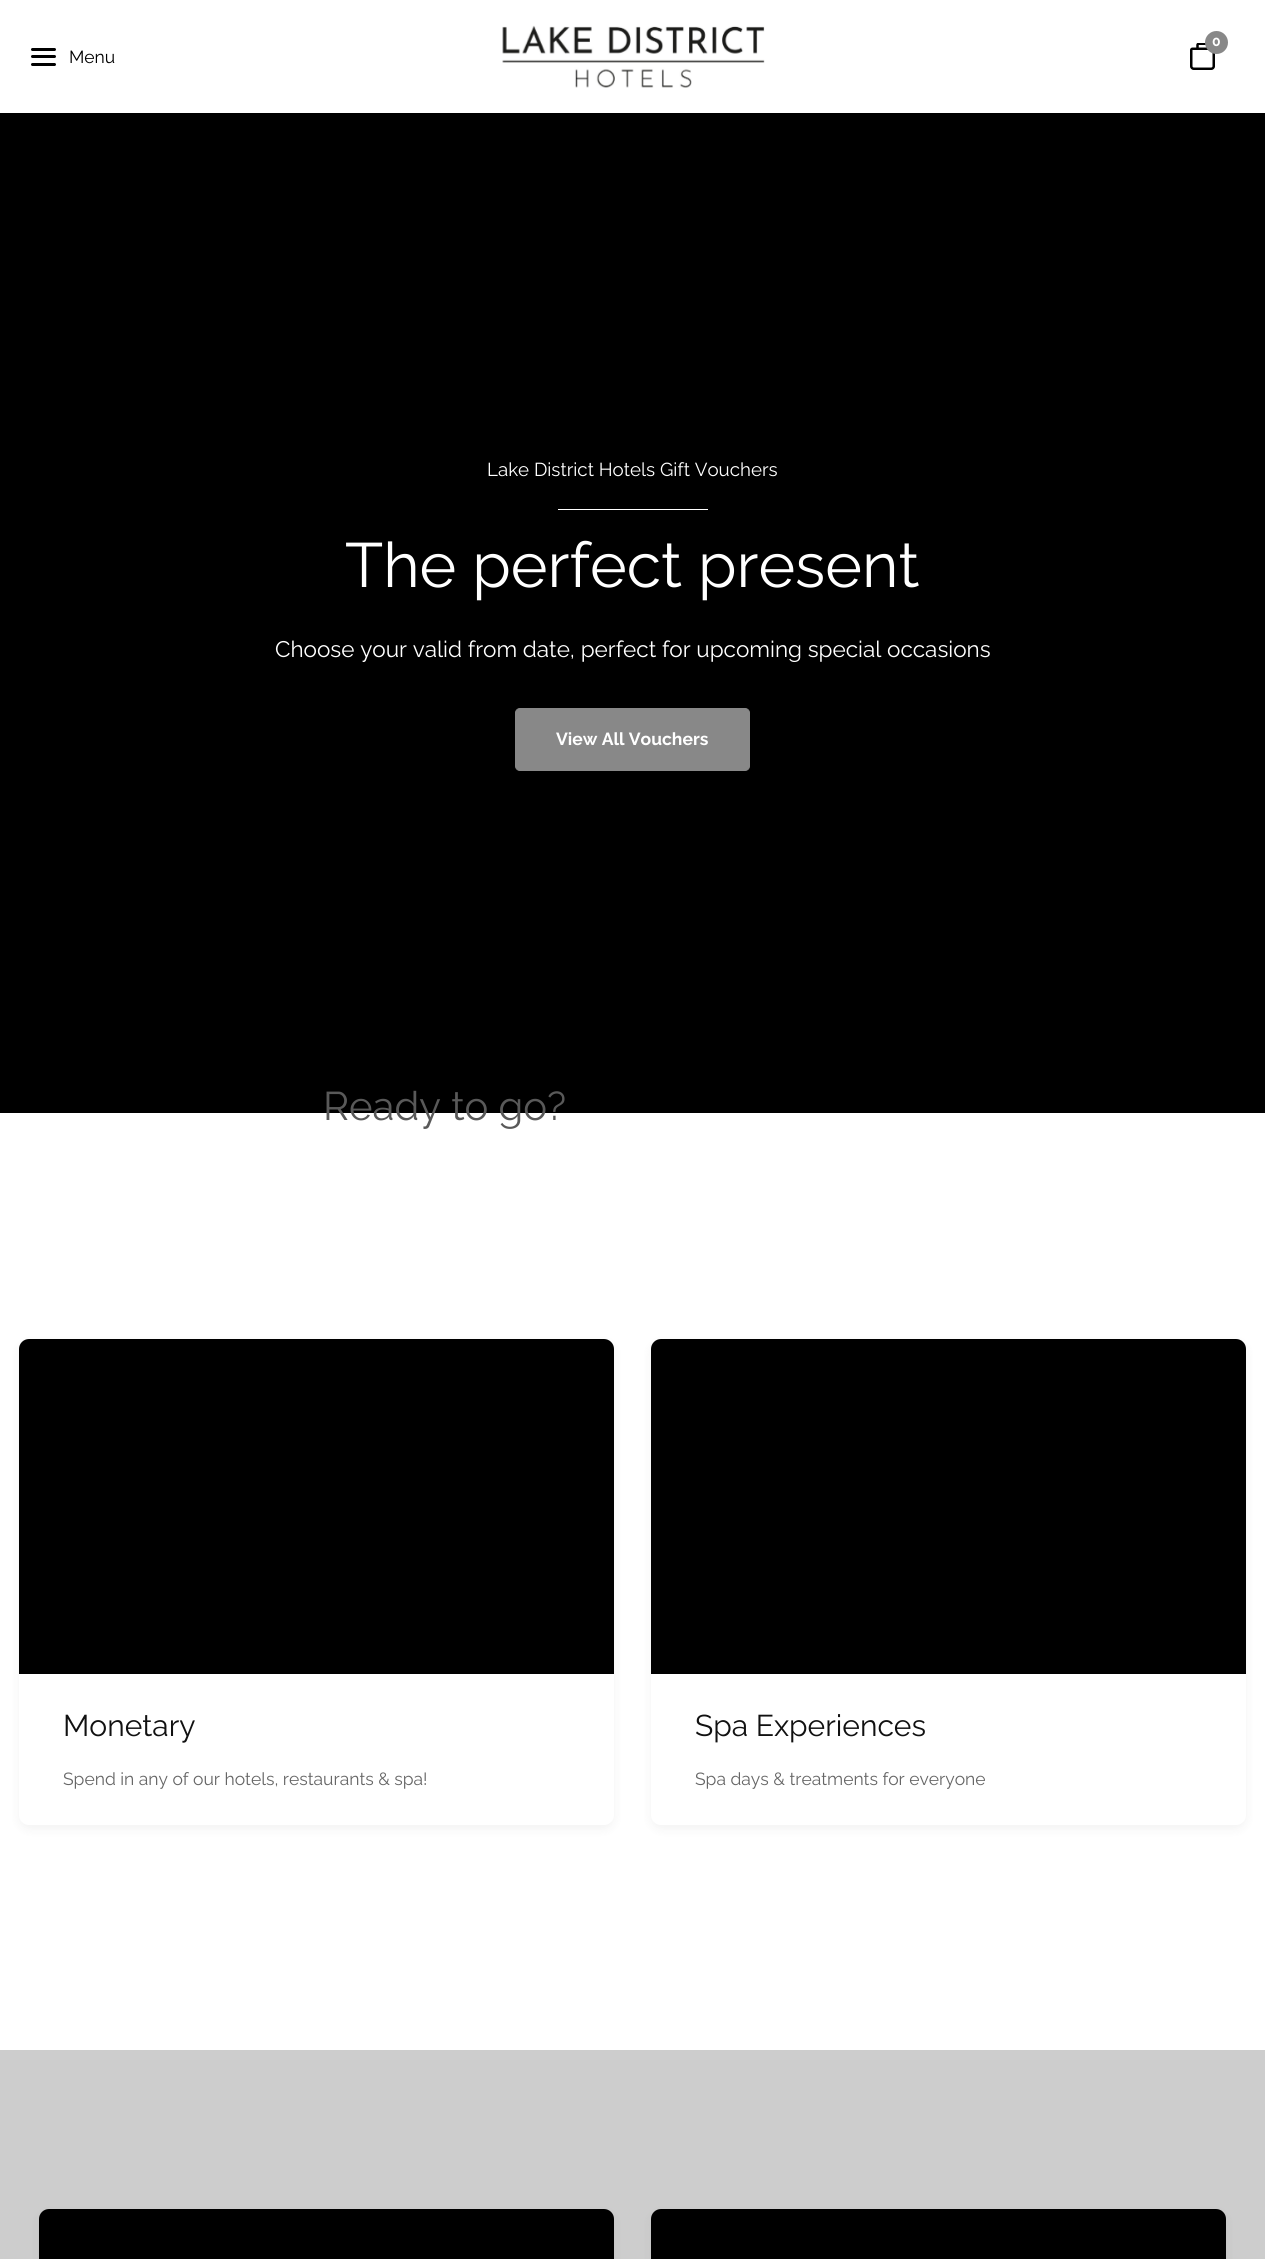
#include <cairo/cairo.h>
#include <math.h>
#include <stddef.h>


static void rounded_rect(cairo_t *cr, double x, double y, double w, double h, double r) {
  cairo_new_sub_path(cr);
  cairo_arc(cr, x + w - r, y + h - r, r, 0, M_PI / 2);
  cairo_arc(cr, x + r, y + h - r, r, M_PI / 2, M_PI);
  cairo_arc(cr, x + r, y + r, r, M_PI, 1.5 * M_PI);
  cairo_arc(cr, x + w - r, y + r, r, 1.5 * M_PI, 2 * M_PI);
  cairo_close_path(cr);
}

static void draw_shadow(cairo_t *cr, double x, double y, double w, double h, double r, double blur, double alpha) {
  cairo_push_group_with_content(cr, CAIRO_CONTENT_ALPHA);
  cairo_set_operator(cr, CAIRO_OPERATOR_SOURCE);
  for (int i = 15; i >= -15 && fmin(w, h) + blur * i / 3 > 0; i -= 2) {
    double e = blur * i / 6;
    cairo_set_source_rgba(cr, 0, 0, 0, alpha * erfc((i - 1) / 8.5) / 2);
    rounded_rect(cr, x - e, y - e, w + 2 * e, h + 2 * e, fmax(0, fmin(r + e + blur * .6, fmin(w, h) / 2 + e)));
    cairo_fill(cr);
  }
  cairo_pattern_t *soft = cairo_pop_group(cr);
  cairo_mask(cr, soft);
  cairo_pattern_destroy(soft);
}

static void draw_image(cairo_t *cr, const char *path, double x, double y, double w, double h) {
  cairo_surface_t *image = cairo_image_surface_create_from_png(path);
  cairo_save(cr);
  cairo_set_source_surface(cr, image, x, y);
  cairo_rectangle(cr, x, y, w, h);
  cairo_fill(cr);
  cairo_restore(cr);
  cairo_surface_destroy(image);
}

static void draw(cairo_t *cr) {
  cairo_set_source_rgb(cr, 1, 1, 1);
  cairo_paint(cr);
  draw_image(cr, "images/1.png", 502, 25, 263, 63);
  draw_image(cr, "images/2.png", 1190, 43, 25, 27);
  cairo_set_source_rgb(cr, 136 / 255.0, 136 / 255.0, 136 / 255.0);
  cairo_arc(cr, 1216.5, 42.5, 11.5, 0, 2 * M_PI);
  cairo_fill(cr);
  cairo_set_source_rgb(cr, 0, 0, 0);
  rounded_rect(cr, 31, 55, 25, 3, 1.5);
  cairo_fill(cr);
  rounded_rect(cr, 31, 48, 25, 3, 1.5);
  cairo_fill(cr);
  rounded_rect(cr, 31, 63, 25, 3, 1.5);
  cairo_fill(cr);
  cairo_rectangle(cr, 0, 113, 1265, 1000);
  cairo_fill(cr);
  cairo_set_source_rgb(cr, 1, 1, 1);
  cairo_rectangle(cr, 558, 509, 150, 1);
  cairo_fill(cr);
  cairo_set_source_rgb(cr, 136 / 255.0, 136 / 255.0, 136 / 255.0);
  rounded_rect(cr, 515.5, 708.5, 234, 62, 4.5);
  cairo_fill_preserve(cr);
  cairo_set_line_width(cr, 1);
  cairo_stroke(cr);
  cairo_set_source_rgb(cr, 0, 0, 0);
  draw_shadow(cr, 19, 1343, 595, 486, 10, 5, 0.05);
  cairo_set_source_rgb(cr, 1, 1, 1);
  rounded_rect(cr, 19, 1339, 595, 486, 10);
  cairo_fill(cr);
  cairo_set_source_rgb(cr, 0, 0, 0);
  cairo_new_path(cr);
  cairo_move_to(cr, 29, 1339);
  cairo_line_to(cr, 604, 1339);
  cairo_curve_to(cr, 609.5, 1339, 614, 1343.5, 614, 1349);
  cairo_line_to(cr, 614, 1674);
  cairo_line_to(cr, 19, 1674);
  cairo_line_to(cr, 19, 1349);
  cairo_curve_to(cr, 19, 1343.5, 23.5, 1339, 29, 1339);
  cairo_close_path(cr);
  cairo_fill(cr);
  cairo_set_source_rgb(cr, 0, 0, 0);
  draw_shadow(cr, 651, 1343, 595, 486, 10, 5, 0.05);
  cairo_set_source_rgb(cr, 1, 1, 1);
  rounded_rect(cr, 651, 1339, 595, 486, 10);
  cairo_fill(cr);
  cairo_set_source_rgb(cr, 0, 0, 0);
  cairo_new_path(cr);
  cairo_move_to(cr, 661, 1339);
  cairo_line_to(cr, 1236, 1339);
  cairo_curve_to(cr, 1241.5, 1339, 1246, 1343.5, 1246, 1349);
  cairo_line_to(cr, 1246, 1674);
  cairo_line_to(cr, 651, 1674);
  cairo_line_to(cr, 651, 1349);
  cairo_curve_to(cr, 651, 1343.5, 655.5, 1339, 661, 1339);
  cairo_close_path(cr);
  cairo_fill(cr);
  cairo_set_source_rgb(cr, 205 / 255.0, 205 / 255.0, 205 / 255.0);
  cairo_rectangle(cr, 0, 2050, 1265, 209);
  cairo_fill(cr);
  cairo_set_source_rgb(cr, 0, 0, 0);
  draw_shadow(cr, 39, 2213, 575, 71, 10, 5, 0.05);
  cairo_set_source_rgb(cr, 0, 0, 0);
  cairo_new_path(cr);
  cairo_move_to(cr, 49, 2209);
  cairo_line_to(cr, 604, 2209);
  cairo_curve_to(cr, 609.5, 2209, 614, 2213.5, 614, 2219);
  cairo_line_to(cr, 614, 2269);
  cairo_line_to(cr, 39, 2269);
  cairo_line_to(cr, 39, 2219);
  cairo_curve_to(cr, 39, 2213.5, 43.5, 2209, 49, 2209);
  cairo_close_path(cr);
  cairo_fill(cr);
  cairo_set_source_rgb(cr, 0, 0, 0);
  draw_shadow(cr, 651, 2213, 575, 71, 10, 5, 0.05);
  cairo_set_source_rgb(cr, 0, 0, 0);
  cairo_new_path(cr);
  cairo_move_to(cr, 661, 2209);
  cairo_line_to(cr, 1216, 2209);
  cairo_curve_to(cr, 1221.5, 2209, 1226, 2213.5, 1226, 2219);
  cairo_line_to(cr, 1226, 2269);
  cairo_line_to(cr, 651, 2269);
  cairo_line_to(cr, 651, 2219);
  cairo_curve_to(cr, 651, 2213.5, 655.5, 2209, 661, 2209);
  cairo_close_path(cr);
  cairo_fill(cr);
  cairo_select_font_face(cr, "Raleway", CAIRO_FONT_SLANT_NORMAL, CAIRO_FONT_WEIGHT_BOLD);
  cairo_set_font_size(cr, 14);
  cairo_set_source_rgb(cr, 1, 1, 1);
  cairo_move_to(cr, 1212, 46);
  cairo_show_text(cr, "0");
  cairo_select_font_face(cr, "Raleway", CAIRO_FONT_SLANT_NORMAL, CAIRO_FONT_WEIGHT_NORMAL);
  cairo_set_font_size(cr, 17.5);
  cairo_set_source_rgb(cr, 0, 0, 0);
  cairo_move_to(cr, 69, 63);
  cairo_show_text(cr, "Menu");
  cairo_set_font_size(cr, 40);
  cairo_set_source_rgb(cr, 89 / 255.0, 89 / 255.0, 89 / 255.0);
  cairo_move_to(cr, 323, 1120);
  cairo_show_text(cr, "Ready to go?");
  cairo_set_font_size(cr, 18.75);
  cairo_set_source_rgb(cr, 1, 1, 1);
  cairo_move_to(cr, 487, 476);
  cairo_show_text(cr, "Lake District Hotels Gift Vouchers");
  cairo_set_font_size(cr, 62.5);
  cairo_move_to(cr, 345, 587);
  cairo_show_text(cr, "The perfect present");
  cairo_set_font_size(cr, 22.5);
  cairo_move_to(cr, 275, 657);
  cairo_show_text(cr, "Choose your valid from date, perfect for upcoming special occasions");
  cairo_select_font_face(cr, "Raleway", CAIRO_FONT_SLANT_NORMAL, CAIRO_FONT_WEIGHT_BOLD);
  cairo_set_font_size(cr, 17.5);
  cairo_move_to(cr, 556, 745);
  cairo_show_text(cr, "View All Vouchers");
  cairo_select_font_face(cr, "Raleway", CAIRO_FONT_SLANT_NORMAL, CAIRO_FONT_WEIGHT_NORMAL);
  cairo_set_font_size(cr, 30);
  cairo_set_source_rgb(cr, 17 / 255.0, 17 / 255.0, 17 / 255.0);
  cairo_move_to(cr, 63, 1736);
  cairo_show_text(cr, "Monetary");
  cairo_set_font_size(cr, 17.5);
  cairo_set_source_rgb(cr, 102 / 255.0, 102 / 255.0, 102 / 255.0);
  cairo_move_to(cr, 63, 1785);
  cairo_show_text(cr, "Spend in any of our hotels, restaurants & spa!");
  cairo_set_font_size(cr, 30);
  cairo_set_source_rgb(cr, 17 / 255.0, 17 / 255.0, 17 / 255.0);
  cairo_move_to(cr, 695, 1736);
  cairo_show_text(cr, "Spa Experiences");
  cairo_set_font_size(cr, 17.5);
  cairo_set_source_rgb(cr, 102 / 255.0, 102 / 255.0, 102 / 255.0);
  cairo_move_to(cr, 695, 1785);
  cairo_show_text(cr, "Spa days & treatments for everyone");
}

int main(void) {
  cairo_surface_t *surface = cairo_image_surface_create(CAIRO_FORMAT_RGB24, 1265, 2259);
  cairo_t *cr = cairo_create(surface);
  cairo_font_options_t *options = cairo_font_options_create();
  cairo_font_options_set_hint_metrics(options, CAIRO_HINT_METRICS_OFF);
  cairo_font_options_set_hint_style(options, CAIRO_HINT_STYLE_NONE);
  cairo_set_font_options(cr, options);
  cairo_set_miter_limit(cr, 4);
  draw(cr);
  cairo_surface_write_to_png(surface, "out.png");
  cairo_font_options_destroy(options);
  cairo_destroy(cr);
  cairo_surface_destroy(surface);
  return 0;
}
